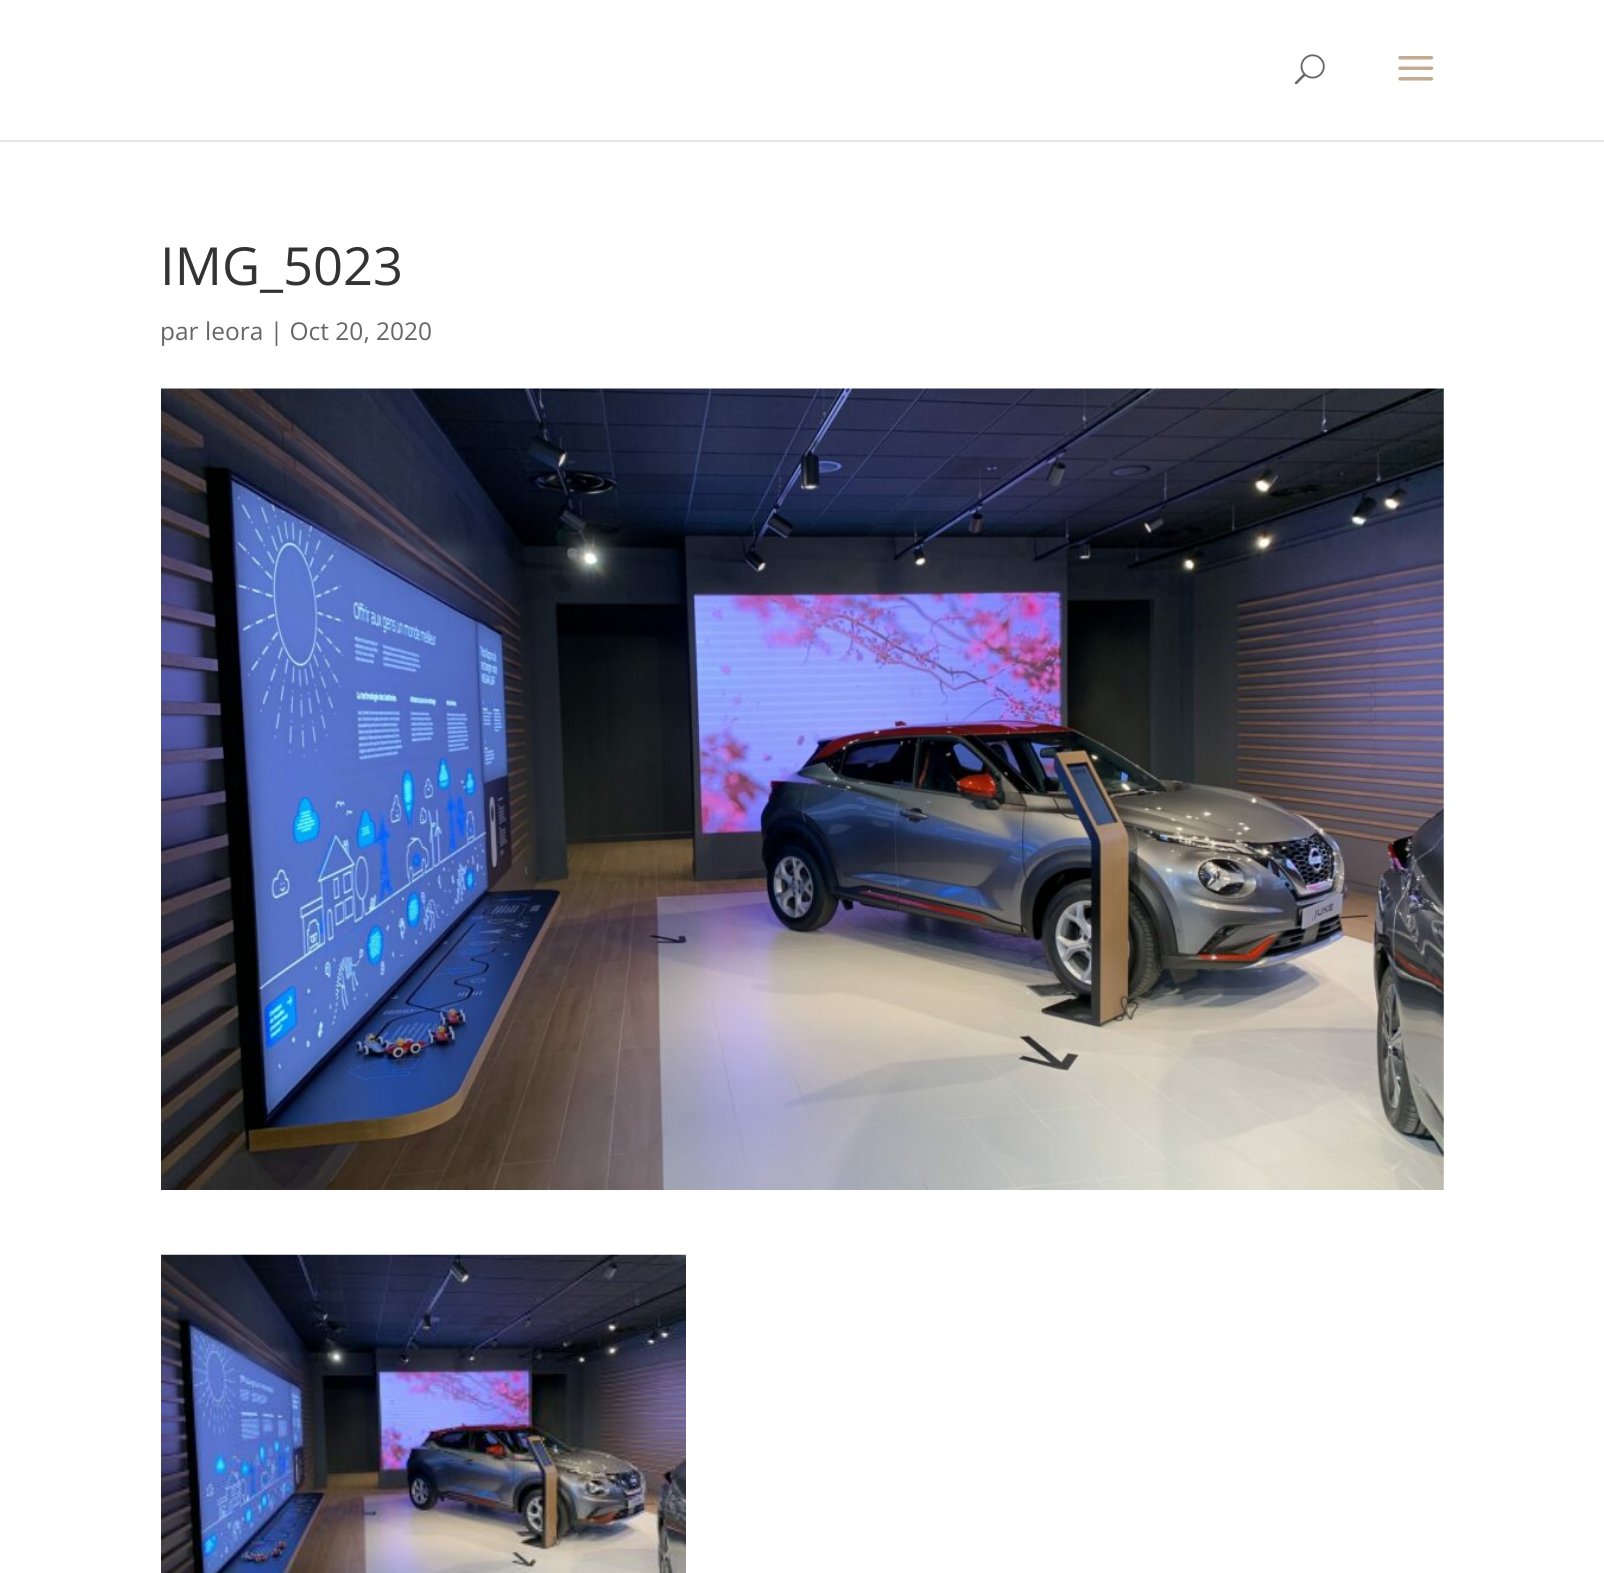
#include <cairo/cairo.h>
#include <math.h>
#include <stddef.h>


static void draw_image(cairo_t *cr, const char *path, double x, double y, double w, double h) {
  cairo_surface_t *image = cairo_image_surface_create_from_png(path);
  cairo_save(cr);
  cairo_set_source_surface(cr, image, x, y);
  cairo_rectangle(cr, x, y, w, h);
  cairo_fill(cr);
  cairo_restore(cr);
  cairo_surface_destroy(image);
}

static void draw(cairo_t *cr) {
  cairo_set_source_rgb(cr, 1, 1, 1);
  cairo_paint(cr);
  cairo_set_source_rgb(cr, 230 / 255.0, 230 / 255.0, 230 / 255.0);
  cairo_new_path(cr);
  cairo_move_to(cr, 0, 140);
  cairo_line_to(cr, 0, 142);
  cairo_line_to(cr, 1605, 142);
  cairo_line_to(cr, 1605, 2);
  cairo_line_to(cr, 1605, 140);
  cairo_close_path(cr);
  cairo_fill(cr);
  draw_image(cr, "images/1.png", 1294, 54, 31, 31);
  draw_image(cr, "images/2.png", 1398, 56, 36, 25);
  draw_image(cr, "images/3.png", 161, 388, 1283, 802);
  draw_image(cr, "images/4.png", 161, 1254, 525, 319);
  cairo_select_font_face(cr, "Open Sans", CAIRO_FONT_SLANT_NORMAL, CAIRO_FONT_WEIGHT_NORMAL);
  cairo_set_font_size(cr, 52.5);
  cairo_set_source_rgb(cr, 51 / 255.0, 51 / 255.0, 51 / 255.0);
  cairo_move_to(cr, 160, 285);
  cairo_show_text(cr, "IMG_5023");
  cairo_set_font_size(cr, 24.5);
  cairo_set_source_rgb(cr, 102 / 255.0, 102 / 255.0, 102 / 255.0);
  cairo_move_to(cr, 160, 340);
  cairo_show_text(cr, "par leora | Oct 20, 2020");
}

int main(void) {
  cairo_surface_t *surface = cairo_image_surface_create(CAIRO_FORMAT_RGB24, 1604, 1573);
  cairo_t *cr = cairo_create(surface);
  cairo_font_options_t *options = cairo_font_options_create();
  cairo_font_options_set_hint_metrics(options, CAIRO_HINT_METRICS_OFF);
  cairo_font_options_set_hint_style(options, CAIRO_HINT_STYLE_NONE);
  cairo_set_font_options(cr, options);
  cairo_set_miter_limit(cr, 4);
  draw(cr);
  cairo_surface_write_to_png(surface, "out.png");
  cairo_font_options_destroy(options);
  cairo_destroy(cr);
  cairo_surface_destroy(surface);
  return 0;
}
